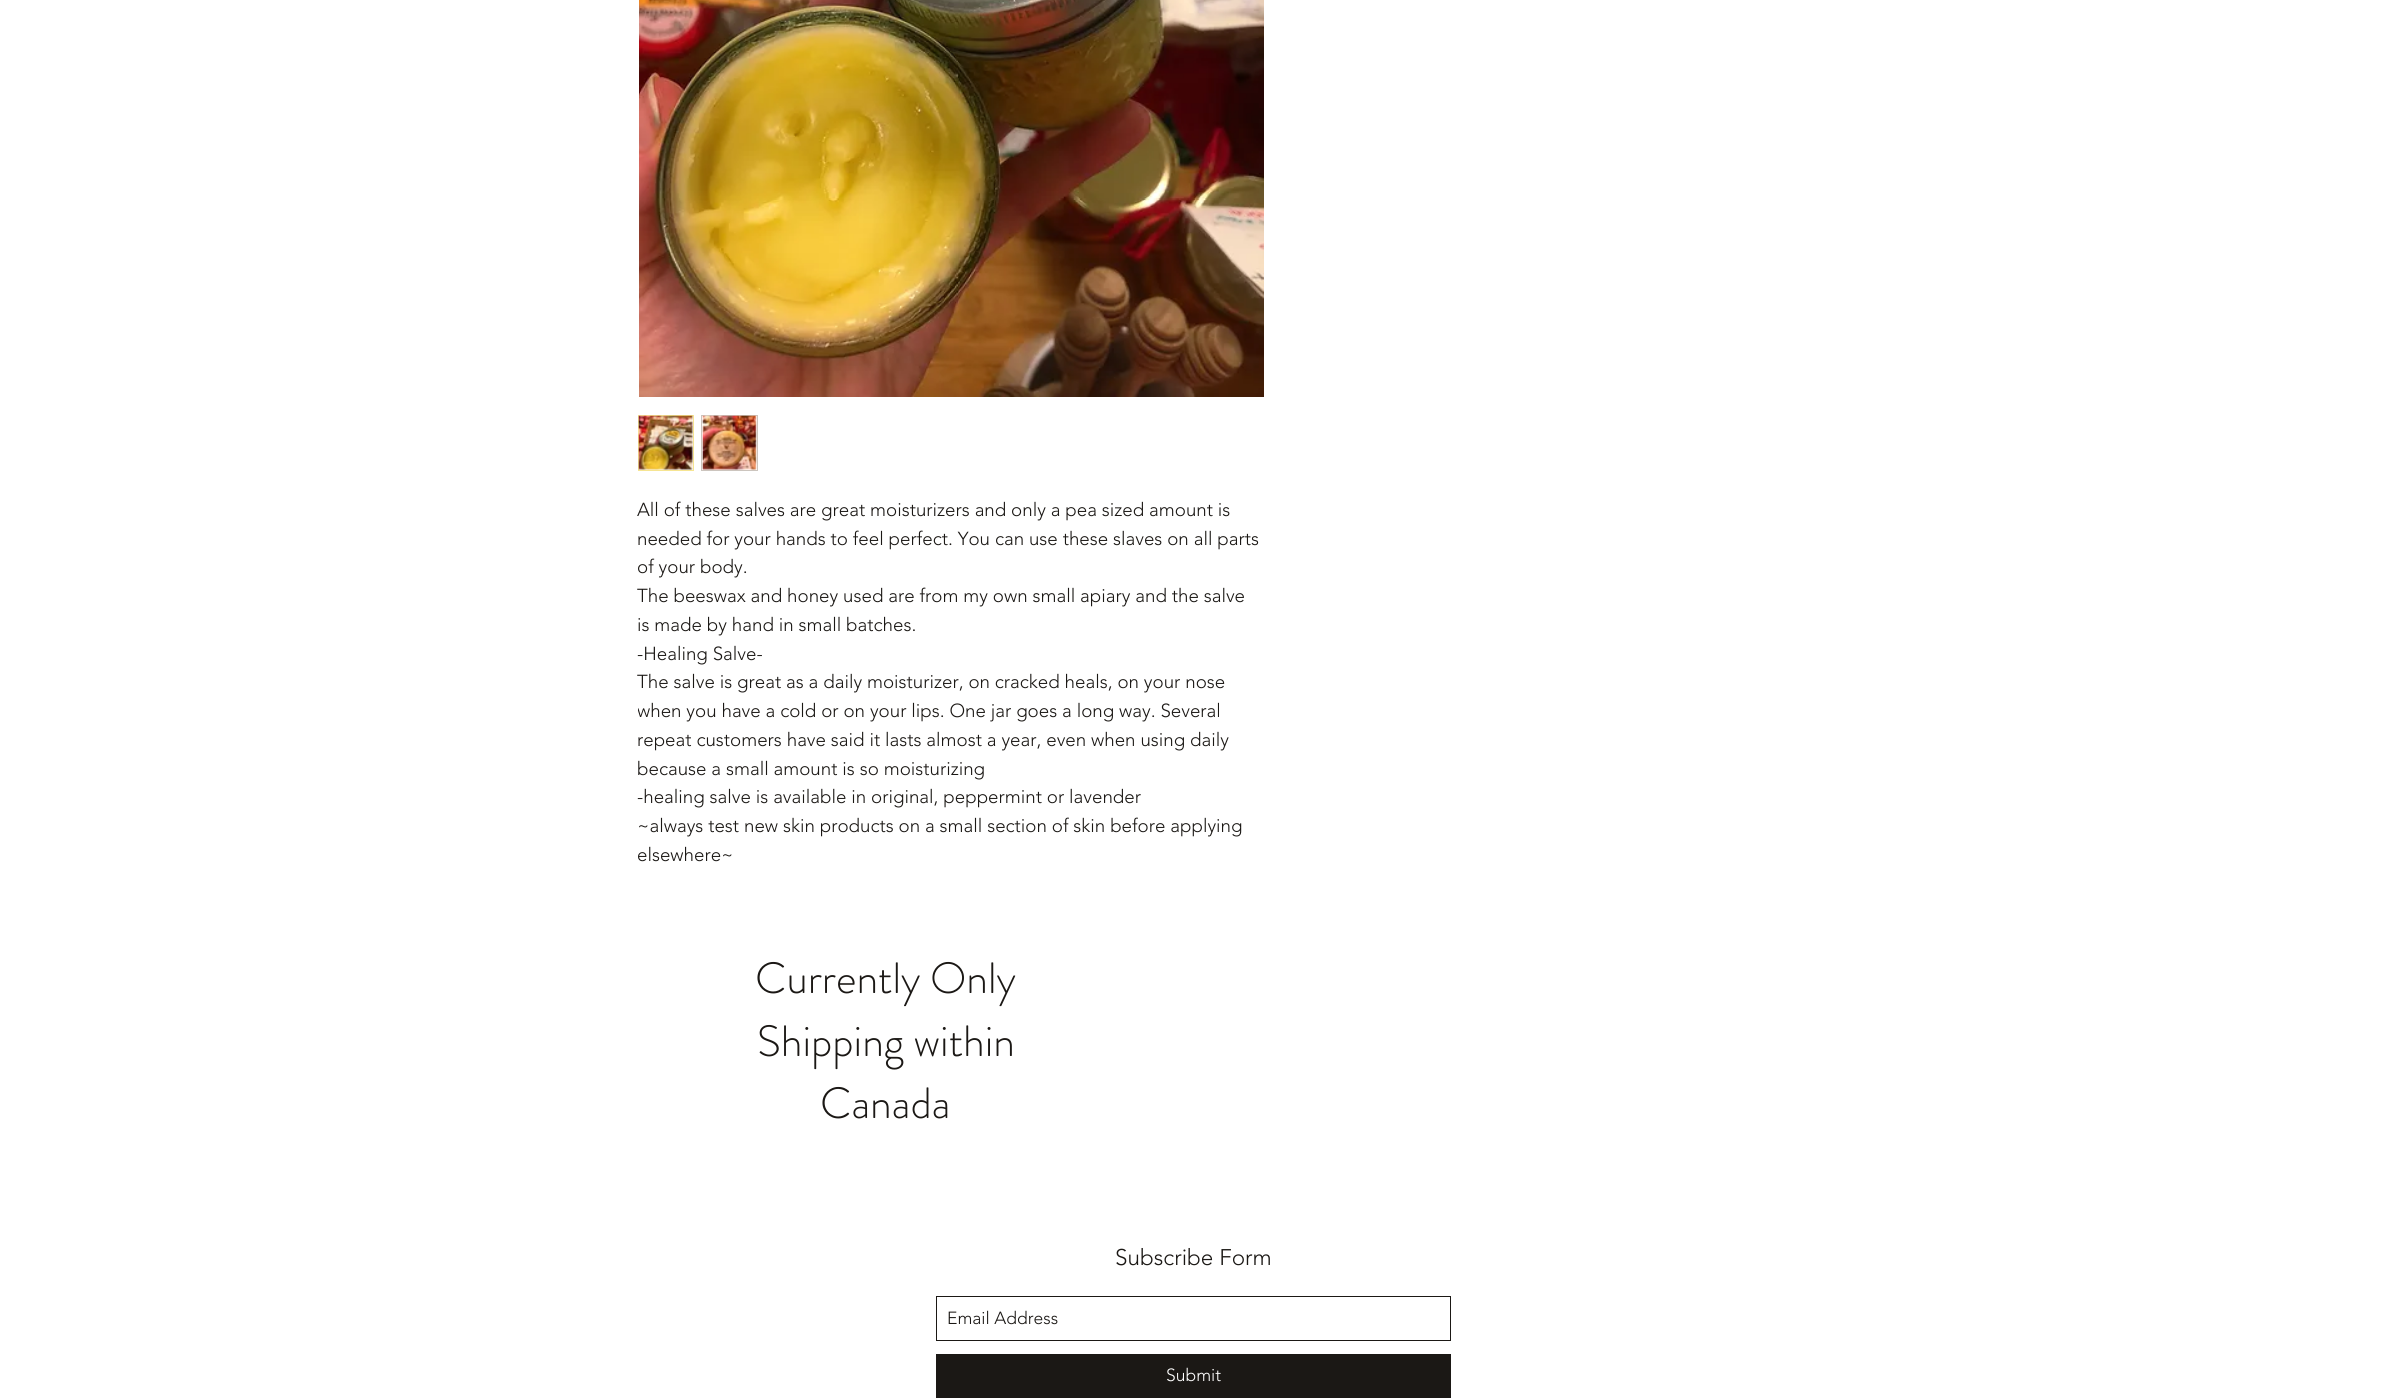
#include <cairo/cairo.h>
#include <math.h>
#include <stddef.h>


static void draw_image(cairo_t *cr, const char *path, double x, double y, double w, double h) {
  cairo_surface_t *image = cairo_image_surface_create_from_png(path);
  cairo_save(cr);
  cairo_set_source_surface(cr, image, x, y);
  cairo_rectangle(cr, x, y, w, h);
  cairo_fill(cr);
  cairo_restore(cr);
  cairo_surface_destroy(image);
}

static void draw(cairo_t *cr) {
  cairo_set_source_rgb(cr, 1, 1, 1);
  cairo_paint(cr);
  draw_image(cr, "images/1.png", 639, 0, 625, 397);
  cairo_rectangle(cr, 638.5, 415.5, 55, 55);
  cairo_set_source_rgb(cr, 246 / 255.0, 229 / 255.0, 146 / 255.0);
  cairo_set_line_width(cr, 1);
  cairo_stroke(cr);
  draw_image(cr, "images/2.png", 638, 415, 55, 55);
  cairo_rectangle(cr, 701.5, 415.5, 56, 55);
  cairo_set_source_rgb(cr, 204 / 255.0, 197 / 255.0, 190 / 255.0);
  cairo_stroke(cr);
  draw_image(cr, "images/3.png", 702, 415, 55, 55);
  cairo_rectangle(cr, 936.5, 1296.5, 514, 44);
  cairo_set_source_rgb(cr, 27 / 255.0, 24 / 255.0, 21 / 255.0);
  cairo_stroke(cr);
  cairo_rectangle(cr, 936, 1354, 515, 44);
  cairo_fill(cr);
  cairo_select_font_face(cr, "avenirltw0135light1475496 Light", CAIRO_FONT_SLANT_NORMAL, CAIRO_FONT_WEIGHT_NORMAL);
  cairo_set_font_size(cr, 18.75);
  cairo_move_to(cr, 637, 516);
  cairo_show_text(cr, "All of these salves are great moisturizers and only a pea sized amount is");
  cairo_move_to(cr, 637, 545);
  cairo_show_text(cr, "needed for your hands to feel perfect. You can use these slaves on all parts");
  cairo_move_to(cr, 637, 573);
  cairo_show_text(cr, "of your body.");
  cairo_move_to(cr, 637, 602);
  cairo_show_text(cr, "The beeswax and honey used are from my own small apiary and the salve");
  cairo_move_to(cr, 637, 631);
  cairo_show_text(cr, "is made by hand in small batches.");
  cairo_move_to(cr, 637, 660);
  cairo_show_text(cr, "-Healing Salve-");
  cairo_move_to(cr, 637, 688);
  cairo_show_text(cr, "The salve is great as a daily moisturizer, on cracked heals, on your nose");
  cairo_save(cr);
  cairo_rectangle(cr, 638, 496, 625, 374);
  cairo_clip(cr);
  cairo_move_to(cr, 637, 717);
  cairo_show_text(cr, "when you have a cold or on your lips. One jar goes a long way. Several");
  cairo_restore(cr);
  cairo_move_to(cr, 637, 746);
  cairo_show_text(cr, "repeat customers have said it lasts almost a year, even when using daily");
  cairo_move_to(cr, 637, 775);
  cairo_show_text(cr, "because a small amount is so moisturizing");
  cairo_move_to(cr, 637, 803);
  cairo_show_text(cr, "-healing salve is available in original, peppermint or lavender");
  cairo_move_to(cr, 637, 832);
  cairo_show_text(cr, "~always test new skin products on a small section of skin before applying");
  cairo_move_to(cr, 637, 861);
  cairo_show_text(cr, "elsewhere~");
  cairo_select_font_face(cr, "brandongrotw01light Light", CAIRO_FONT_SLANT_NORMAL, CAIRO_FONT_WEIGHT_NORMAL);
  cairo_set_font_size(cr, 43.75);
  cairo_move_to(cr, 755, 993);
  cairo_show_text(cr, "Currently Only");
  cairo_move_to(cr, 757, 1056);
  cairo_show_text(cr, "Shipping within");
  cairo_move_to(cr, 820, 1118);
  cairo_show_text(cr, "Canada");
  cairo_select_font_face(cr, "avenirltw0135light1475496 Light", CAIRO_FONT_SLANT_NORMAL, CAIRO_FONT_WEIGHT_NORMAL);
  cairo_set_font_size(cr, 22.5);
  cairo_move_to(cr, 1115, 1265);
  cairo_show_text(cr, "Subscribe Form");
  cairo_set_font_size(cr, 17.5);
  cairo_move_to(cr, 947, 1324);
  cairo_show_text(cr, "Email Address");
  cairo_set_source_rgb(cr, 1, 1, 1);
  cairo_move_to(cr, 1166, 1381);
  cairo_show_text(cr, "Submit");
}

int main(void) {
  cairo_surface_t *surface = cairo_image_surface_create(CAIRO_FORMAT_RGB24, 2386, 1398);
  cairo_t *cr = cairo_create(surface);
  cairo_font_options_t *options = cairo_font_options_create();
  cairo_font_options_set_hint_metrics(options, CAIRO_HINT_METRICS_OFF);
  cairo_font_options_set_hint_style(options, CAIRO_HINT_STYLE_NONE);
  cairo_set_font_options(cr, options);
  cairo_set_miter_limit(cr, 4);
  draw(cr);
  cairo_surface_write_to_png(surface, "out.png");
  cairo_font_options_destroy(options);
  cairo_destroy(cr);
  cairo_surface_destroy(surface);
  return 0;
}
